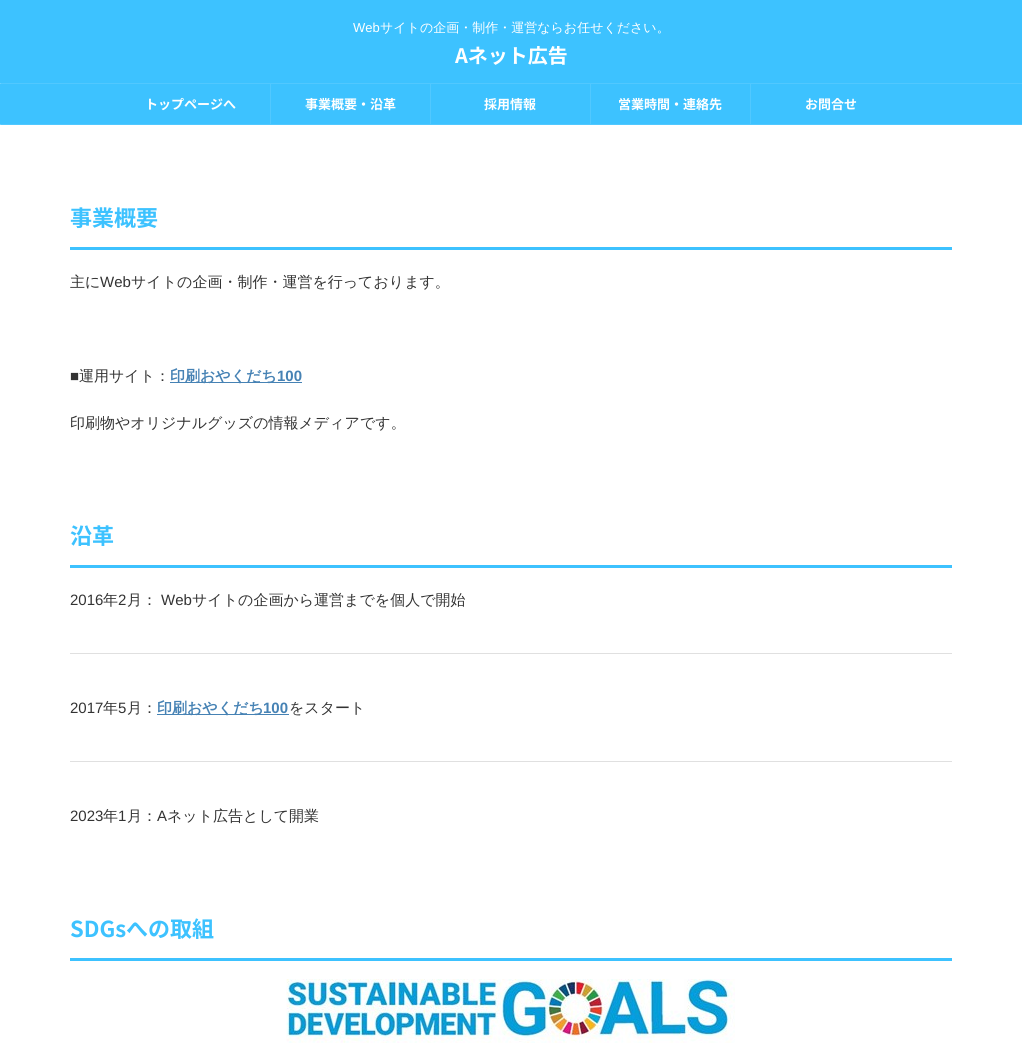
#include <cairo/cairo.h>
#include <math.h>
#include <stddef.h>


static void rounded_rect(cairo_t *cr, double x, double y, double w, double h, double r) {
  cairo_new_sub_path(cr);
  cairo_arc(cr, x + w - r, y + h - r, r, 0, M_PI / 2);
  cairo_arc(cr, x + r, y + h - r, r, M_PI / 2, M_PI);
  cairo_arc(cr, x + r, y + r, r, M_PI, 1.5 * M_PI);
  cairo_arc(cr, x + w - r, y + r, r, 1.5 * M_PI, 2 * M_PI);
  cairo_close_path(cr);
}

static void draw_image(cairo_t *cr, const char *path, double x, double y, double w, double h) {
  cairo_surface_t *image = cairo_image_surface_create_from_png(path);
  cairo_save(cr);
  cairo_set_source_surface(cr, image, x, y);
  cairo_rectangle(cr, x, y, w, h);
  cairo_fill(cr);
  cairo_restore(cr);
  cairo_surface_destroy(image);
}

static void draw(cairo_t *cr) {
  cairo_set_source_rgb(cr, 1, 1, 1);
  cairo_paint(cr);
  cairo_set_source_rgb(cr, 61 / 255.0, 194 / 255.0, 1);
  cairo_rectangle(cr, 0, 0, 1022, 83);
  cairo_fill(cr);
  rounded_rect(cr, 0, 83, 1022, 42, 1);
  cairo_fill(cr);
  cairo_set_source_rgb(cr, 81 / 255.0, 200 / 255.0, 1);
  cairo_rectangle(cr, 1, 83, 1021, 1);
  cairo_fill(cr);
  cairo_rectangle(cr, 1, 124, 1021, 1);
  cairo_fill(cr);
  cairo_rectangle(cr, 270, 84, 1, 40);
  cairo_fill(cr);
  cairo_rectangle(cr, 430, 84, 1, 40);
  cairo_fill(cr);
  cairo_rectangle(cr, 590, 84, 1, 40);
  cairo_fill(cr);
  cairo_rectangle(cr, 750, 84, 1, 40);
  cairo_fill(cr);
  cairo_set_source_rgb(cr, 61 / 255.0, 194 / 255.0, 1);
  cairo_rectangle(cr, 70, 247, 882, 3);
  cairo_fill(cr);
  cairo_set_source_rgb(cr, 70 / 255.0, 130 / 255.0, 180 / 255.0);
  cairo_rectangle(cr, 170, 382, 132, 1);
  cairo_fill(cr);
  cairo_set_source_rgb(cr, 61 / 255.0, 194 / 255.0, 1);
  cairo_rectangle(cr, 70, 565, 882, 3);
  cairo_fill(cr);
  cairo_set_source_rgb(cr, 224 / 255.0, 224 / 255.0, 224 / 255.0);
  cairo_rectangle(cr, 70, 653, 882, 1);
  cairo_fill(cr);
  cairo_set_source_rgb(cr, 70 / 255.0, 130 / 255.0, 180 / 255.0);
  cairo_rectangle(cr, 157, 714, 132, 1);
  cairo_fill(cr);
  cairo_set_source_rgb(cr, 224 / 255.0, 224 / 255.0, 224 / 255.0);
  cairo_rectangle(cr, 70, 761, 882, 1);
  cairo_fill(cr);
  cairo_set_source_rgb(cr, 61 / 255.0, 194 / 255.0, 1);
  cairo_rectangle(cr, 70, 958, 882, 3);
  cairo_fill(cr);
  draw_image(cr, "images/1.png", 286, 979, 449, 64);
  cairo_select_font_face(cr, "Liberation Sans", CAIRO_FONT_SLANT_NORMAL, CAIRO_FONT_WEIGHT_NORMAL);
  cairo_set_font_size(cr, 13);
  cairo_set_source_rgb(cr, 1, 1, 1);
  cairo_move_to(cr, 353, 32);
  cairo_show_text(cr, "Web");
  cairo_select_font_face(cr, "WenQuanYi Zen Hei Medium", CAIRO_FONT_SLANT_NORMAL, CAIRO_FONT_WEIGHT_NORMAL);
  cairo_move_to(cr, 380, 32);
  cairo_show_text(cr, "サイトの企画・制作・運営ならお任せください。");
  cairo_select_font_face(cr, "Noto Sans JP", CAIRO_FONT_SLANT_NORMAL, CAIRO_FONT_WEIGHT_BOLD);
  cairo_set_font_size(cr, 20);
  cairo_move_to(cr, 455, 63);
  cairo_show_text(cr, "Aネット広告");
  cairo_set_font_size(cr, 13);
  cairo_move_to(cr, 145, 109);
  cairo_show_text(cr, "トップページへ");
  cairo_move_to(cr, 305, 109);
  cairo_show_text(cr, "事業概要・沿革");
  cairo_move_to(cr, 484, 109);
  cairo_show_text(cr, "採用情報");
  cairo_move_to(cr, 618, 109);
  cairo_show_text(cr, "営業時間・連絡先");
  cairo_move_to(cr, 805, 109);
  cairo_show_text(cr, "お問合せ");
  cairo_set_font_size(cr, 22);
  cairo_set_source_rgb(cr, 61 / 255.0, 194 / 255.0, 1);
  cairo_move_to(cr, 70, 226);
  cairo_show_text(cr, "事業概要");
  cairo_select_font_face(cr, "WenQuanYi Zen Hei Medium", CAIRO_FONT_SLANT_NORMAL, CAIRO_FONT_WEIGHT_NORMAL);
  cairo_set_font_size(cr, 15);
  cairo_set_source_rgb(cr, 51 / 255.0, 51 / 255.0, 51 / 255.0);
  cairo_move_to(cr, 70, 287);
  cairo_show_text(cr, "主に");
  cairo_select_font_face(cr, "Liberation Sans", CAIRO_FONT_SLANT_NORMAL, CAIRO_FONT_WEIGHT_NORMAL);
  cairo_move_to(cr, 100, 287);
  cairo_show_text(cr, "Web");
  cairo_select_font_face(cr, "WenQuanYi Zen Hei Medium", CAIRO_FONT_SLANT_NORMAL, CAIRO_FONT_WEIGHT_NORMAL);
  cairo_move_to(cr, 131, 287);
  cairo_show_text(cr, "サイトの企画・制作・運営を行っております。");
  cairo_select_font_face(cr, "Liberation Sans", CAIRO_FONT_SLANT_NORMAL, CAIRO_FONT_WEIGHT_NORMAL);
  cairo_move_to(cr, 70, 381);
  cairo_show_text(cr, "■");
  cairo_select_font_face(cr, "WenQuanYi Zen Hei Medium", CAIRO_FONT_SLANT_NORMAL, CAIRO_FONT_WEIGHT_NORMAL);
  cairo_move_to(cr, 79, 381);
  cairo_show_text(cr, "運用サイト：");
  cairo_select_font_face(cr, "WenQuanYi Zen Hei", CAIRO_FONT_SLANT_NORMAL, CAIRO_FONT_WEIGHT_BOLD);
  cairo_set_source_rgb(cr, 70 / 255.0, 130 / 255.0, 180 / 255.0);
  cairo_move_to(cr, 170, 381);
  cairo_show_text(cr, "印刷おやくだち");
  cairo_select_font_face(cr, "Liberation Sans", CAIRO_FONT_SLANT_NORMAL, CAIRO_FONT_WEIGHT_BOLD);
  cairo_move_to(cr, 277, 381);
  cairo_show_text(cr, "100");
  cairo_select_font_face(cr, "WenQuanYi Zen Hei Medium", CAIRO_FONT_SLANT_NORMAL, CAIRO_FONT_WEIGHT_NORMAL);
  cairo_set_source_rgb(cr, 51 / 255.0, 51 / 255.0, 51 / 255.0);
  cairo_move_to(cr, 70, 428);
  cairo_show_text(cr, "印刷物やオリジナルグッズの情報メディアです。");
  cairo_select_font_face(cr, "Noto Sans JP", CAIRO_FONT_SLANT_NORMAL, CAIRO_FONT_WEIGHT_BOLD);
  cairo_set_font_size(cr, 22);
  cairo_set_source_rgb(cr, 61 / 255.0, 194 / 255.0, 1);
  cairo_move_to(cr, 70, 544);
  cairo_show_text(cr, "沿革");
  cairo_select_font_face(cr, "Liberation Sans", CAIRO_FONT_SLANT_NORMAL, CAIRO_FONT_WEIGHT_NORMAL);
  cairo_set_font_size(cr, 15);
  cairo_set_source_rgb(cr, 51 / 255.0, 51 / 255.0, 51 / 255.0);
  cairo_move_to(cr, 70, 605);
  cairo_show_text(cr, "2016");
  cairo_select_font_face(cr, "WenQuanYi Zen Hei Medium", CAIRO_FONT_SLANT_NORMAL, CAIRO_FONT_WEIGHT_NORMAL);
  cairo_move_to(cr, 103, 605);
  cairo_show_text(cr, "年");
  cairo_select_font_face(cr, "Liberation Sans", CAIRO_FONT_SLANT_NORMAL, CAIRO_FONT_WEIGHT_NORMAL);
  cairo_move_to(cr, 118, 605);
  cairo_show_text(cr, "2");
  cairo_select_font_face(cr, "WenQuanYi Zen Hei Medium", CAIRO_FONT_SLANT_NORMAL, CAIRO_FONT_WEIGHT_NORMAL);
  cairo_move_to(cr, 127, 605);
  cairo_show_text(cr, "月：");
  cairo_select_font_face(cr, "Liberation Sans", CAIRO_FONT_SLANT_NORMAL, CAIRO_FONT_WEIGHT_NORMAL);
  cairo_move_to(cr, 161, 605);
  cairo_show_text(cr, "Web");
  cairo_select_font_face(cr, "WenQuanYi Zen Hei Medium", CAIRO_FONT_SLANT_NORMAL, CAIRO_FONT_WEIGHT_NORMAL);
  cairo_move_to(cr, 192, 605);
  cairo_show_text(cr, "サイトの企画から運営までを個人で開始");
  cairo_select_font_face(cr, "Liberation Sans", CAIRO_FONT_SLANT_NORMAL, CAIRO_FONT_WEIGHT_NORMAL);
  cairo_move_to(cr, 70, 713);
  cairo_show_text(cr, "2017");
  cairo_select_font_face(cr, "WenQuanYi Zen Hei Medium", CAIRO_FONT_SLANT_NORMAL, CAIRO_FONT_WEIGHT_NORMAL);
  cairo_move_to(cr, 103, 713);
  cairo_show_text(cr, "年");
  cairo_select_font_face(cr, "Liberation Sans", CAIRO_FONT_SLANT_NORMAL, CAIRO_FONT_WEIGHT_NORMAL);
  cairo_move_to(cr, 118, 713);
  cairo_show_text(cr, "5");
  cairo_select_font_face(cr, "WenQuanYi Zen Hei Medium", CAIRO_FONT_SLANT_NORMAL, CAIRO_FONT_WEIGHT_NORMAL);
  cairo_move_to(cr, 127, 713);
  cairo_show_text(cr, "月：");
  cairo_select_font_face(cr, "WenQuanYi Zen Hei", CAIRO_FONT_SLANT_NORMAL, CAIRO_FONT_WEIGHT_BOLD);
  cairo_set_source_rgb(cr, 70 / 255.0, 130 / 255.0, 180 / 255.0);
  cairo_move_to(cr, 157, 713);
  cairo_show_text(cr, "印刷おやくだち");
  cairo_select_font_face(cr, "Liberation Sans", CAIRO_FONT_SLANT_NORMAL, CAIRO_FONT_WEIGHT_BOLD);
  cairo_move_to(cr, 263, 713);
  cairo_show_text(cr, "100");
  cairo_select_font_face(cr, "WenQuanYi Zen Hei Medium", CAIRO_FONT_SLANT_NORMAL, CAIRO_FONT_WEIGHT_NORMAL);
  cairo_set_source_rgb(cr, 51 / 255.0, 51 / 255.0, 51 / 255.0);
  cairo_move_to(cr, 289, 713);
  cairo_show_text(cr, "をスタート");
  cairo_select_font_face(cr, "Liberation Sans", CAIRO_FONT_SLANT_NORMAL, CAIRO_FONT_WEIGHT_NORMAL);
  cairo_move_to(cr, 70, 821);
  cairo_show_text(cr, "2023");
  cairo_select_font_face(cr, "WenQuanYi Zen Hei Medium", CAIRO_FONT_SLANT_NORMAL, CAIRO_FONT_WEIGHT_NORMAL);
  cairo_move_to(cr, 103, 821);
  cairo_show_text(cr, "年");
  cairo_select_font_face(cr, "Liberation Sans", CAIRO_FONT_SLANT_NORMAL, CAIRO_FONT_WEIGHT_NORMAL);
  cairo_move_to(cr, 118, 821);
  cairo_show_text(cr, "1");
  cairo_select_font_face(cr, "WenQuanYi Zen Hei Medium", CAIRO_FONT_SLANT_NORMAL, CAIRO_FONT_WEIGHT_NORMAL);
  cairo_move_to(cr, 127, 821);
  cairo_show_text(cr, "月：");
  cairo_select_font_face(cr, "Liberation Sans", CAIRO_FONT_SLANT_NORMAL, CAIRO_FONT_WEIGHT_NORMAL);
  cairo_move_to(cr, 157, 821);
  cairo_show_text(cr, "A");
  cairo_select_font_face(cr, "WenQuanYi Zen Hei Medium", CAIRO_FONT_SLANT_NORMAL, CAIRO_FONT_WEIGHT_NORMAL);
  cairo_move_to(cr, 167, 821);
  cairo_show_text(cr, "ネット広告として開業");
  cairo_select_font_face(cr, "Noto Sans JP", CAIRO_FONT_SLANT_NORMAL, CAIRO_FONT_WEIGHT_BOLD);
  cairo_set_font_size(cr, 22);
  cairo_set_source_rgb(cr, 61 / 255.0, 194 / 255.0, 1);
  cairo_move_to(cr, 70, 937);
  cairo_show_text(cr, "SDGsへの取組");
}

int main(void) {
  cairo_surface_t *surface = cairo_image_surface_create(CAIRO_FORMAT_RGB24, 1022, 1058);
  cairo_t *cr = cairo_create(surface);
  cairo_font_options_t *options = cairo_font_options_create();
  cairo_font_options_set_hint_metrics(options, CAIRO_HINT_METRICS_OFF);
  cairo_font_options_set_hint_style(options, CAIRO_HINT_STYLE_NONE);
  cairo_set_font_options(cr, options);
  cairo_set_miter_limit(cr, 4);
  draw(cr);
  cairo_surface_write_to_png(surface, "out.png");
  cairo_font_options_destroy(options);
  cairo_destroy(cr);
  cairo_surface_destroy(surface);
  return 0;
}
